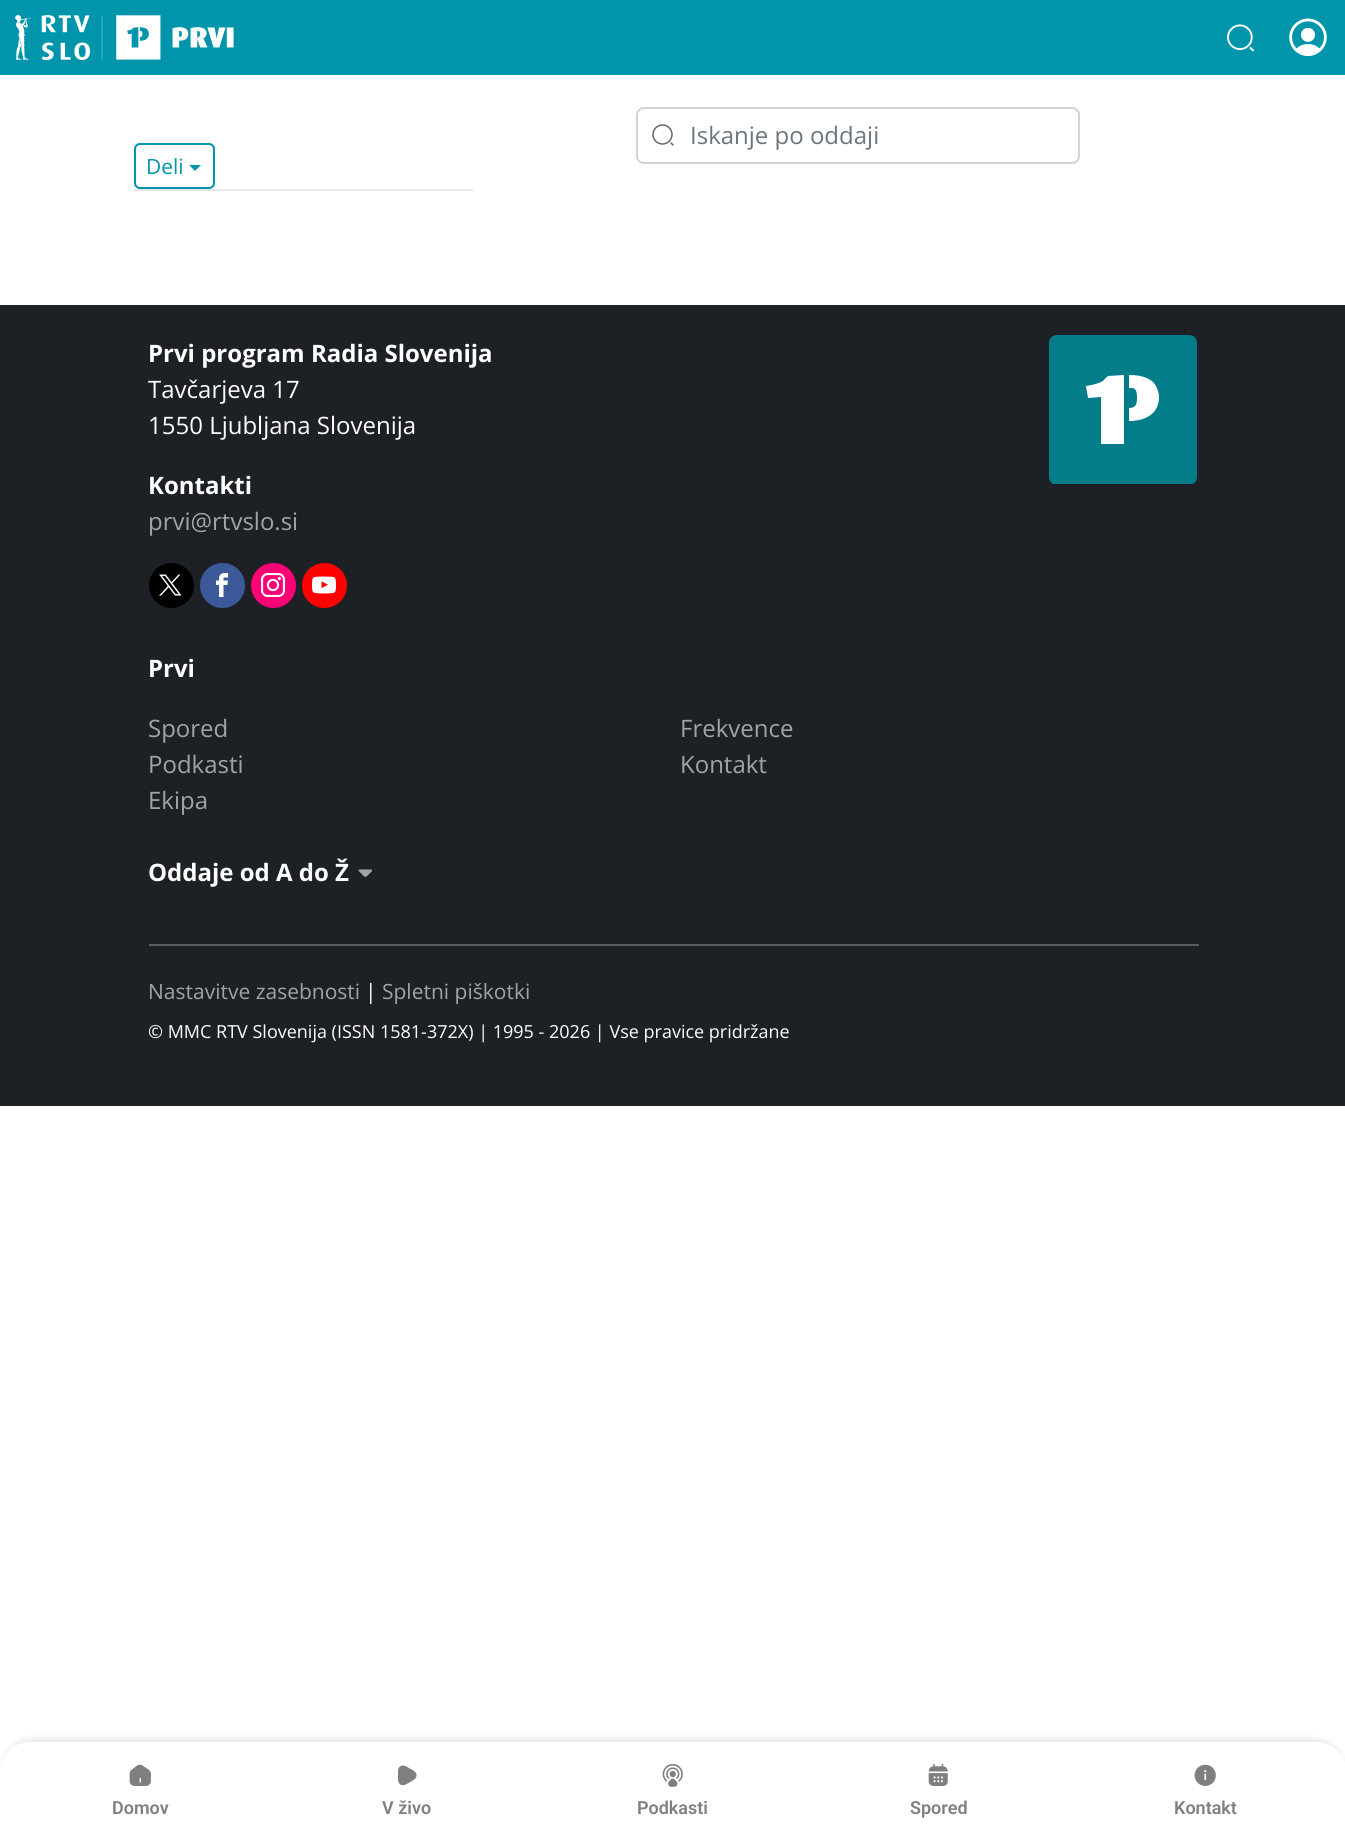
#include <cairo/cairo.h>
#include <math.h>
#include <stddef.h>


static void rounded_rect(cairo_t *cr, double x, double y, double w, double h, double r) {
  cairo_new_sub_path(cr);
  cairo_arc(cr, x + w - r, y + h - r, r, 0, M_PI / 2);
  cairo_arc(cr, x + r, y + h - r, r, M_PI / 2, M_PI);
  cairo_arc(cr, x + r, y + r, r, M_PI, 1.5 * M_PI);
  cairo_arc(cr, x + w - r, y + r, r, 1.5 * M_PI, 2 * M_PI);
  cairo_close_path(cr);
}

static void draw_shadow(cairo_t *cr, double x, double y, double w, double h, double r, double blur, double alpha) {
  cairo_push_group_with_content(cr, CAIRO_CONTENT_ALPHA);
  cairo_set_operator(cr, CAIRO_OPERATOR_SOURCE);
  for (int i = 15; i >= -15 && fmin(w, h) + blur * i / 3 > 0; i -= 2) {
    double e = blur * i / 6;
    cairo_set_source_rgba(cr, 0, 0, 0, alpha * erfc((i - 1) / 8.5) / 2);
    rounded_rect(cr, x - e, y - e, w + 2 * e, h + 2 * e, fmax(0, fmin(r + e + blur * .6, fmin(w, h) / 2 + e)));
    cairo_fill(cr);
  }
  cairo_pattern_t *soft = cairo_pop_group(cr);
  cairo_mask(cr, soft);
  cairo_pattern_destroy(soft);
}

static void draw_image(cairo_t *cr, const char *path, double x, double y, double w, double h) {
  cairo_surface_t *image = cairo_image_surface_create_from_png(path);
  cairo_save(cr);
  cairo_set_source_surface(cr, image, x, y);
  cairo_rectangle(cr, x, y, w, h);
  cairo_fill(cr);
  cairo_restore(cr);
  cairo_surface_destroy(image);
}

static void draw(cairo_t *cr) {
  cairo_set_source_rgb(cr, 1, 1, 1);
  cairo_paint(cr);
  cairo_set_source_rgb(cr, 0, 149 / 255.0, 170 / 255.0);
  cairo_rectangle(cr, 0, 0, 1345, 75);
  cairo_fill(cr);
  draw_image(cr, "images/1.png", 15, 15, 219, 45);
  draw_image(cr, "images/2.png", 1227, 24, 27, 28);
  draw_image(cr, "images/3.png", 1289, 18, 38, 39);
  rounded_rect(cr, 637, 108, 442, 55, 7);
  cairo_set_source_rgb(cr, 206 / 255.0, 212 / 255.0, 218 / 255.0);
  cairo_stroke(cr);
  draw_image(cr, "images/4.png", 652, 124, 22, 22);
  rounded_rect(cr, 135, 144, 79, 44, 5);
  cairo_set_source_rgb(cr, 0, 149 / 255.0, 170 / 255.0);
  cairo_stroke(cr);
  cairo_new_path(cr);
  cairo_move_to(cr, 189, 165);
  cairo_line_to(cr, 201, 165);
  cairo_line_to(cr, 195, 171);
  cairo_close_path(cr);
  cairo_fill(cr);
  cairo_set_source_rgb(cr, 230 / 255.0, 230 / 255.0, 230 / 255.0);
  cairo_rectangle(cr, 134, 189, 339, 2);
  cairo_fill(cr);
  cairo_set_source_rgb(cr, 29 / 255.0, 33 / 255.0, 37 / 255.0);
  cairo_rectangle(cr, 0, 305, 1345, 801);
  cairo_fill(cr);
  cairo_set_source_rgb(cr, 0, 0, 0);
  cairo_arc(cr, 171.5, 585.5, 22.5, 0, 2 * M_PI);
  cairo_fill(cr);
  draw_image(cr, "images/5.png", 159, 574, 23, 22);
  cairo_set_source_rgb(cr, 59 / 255.0, 89 / 255.0, 152 / 255.0);
  cairo_arc(cr, 222.5, 585.5, 22.5, 0, 2 * M_PI);
  cairo_fill(cr);
  draw_image(cr, "images/6.png", 216, 573, 12, 24);
  cairo_set_source_rgb(cr, 1, 0, 118 / 255.0);
  cairo_arc(cr, 273.5, 585.5, 22.5, 0, 2 * M_PI);
  cairo_fill(cr);
  draw_image(cr, "images/7.png", 261, 573, 24, 24);
  cairo_set_source_rgb(cr, 1, 0, 0);
  cairo_arc(cr, 324.5, 585.5, 22.5, 0, 2 * M_PI);
  cairo_fill(cr);
  draw_image(cr, "images/8.png", 312, 576, 24, 18);
  cairo_save(cr);
  rounded_rect(cr, 1049, 335, 148, 150, 8);
  cairo_clip(cr);
  cairo_set_source_rgb(cr, 4 / 255.0, 125 / 255.0, 139 / 255.0);
  cairo_new_path(cr);
  cairo_move_to(cr, 1057, 335);
  cairo_line_to(cr, 1189, 335);
  cairo_curve_to(cr, 1193.5, 335, 1197, 338.5, 1197, 343);
  cairo_line_to(cr, 1197, 484);
  cairo_line_to(cr, 1049, 484);
  cairo_line_to(cr, 1049, 343);
  cairo_curve_to(cr, 1049, 338.5, 1052.5, 335, 1057, 335);
  cairo_close_path(cr);
  cairo_fill(cr);
  cairo_restore(cr);
  cairo_set_source_rgb(cr, 1, 1, 1);
  cairo_new_path(cr);
  cairo_move_to(cr, 1101, 382);
  cairo_curve_to(cr, 1097, 384, 1092, 385, 1086, 386);
  cairo_line_to(cr, 1088, 398);
  cairo_line_to(cr, 1101, 397);
  cairo_line_to(cr, 1101, 444);
  cairo_line_to(cr, 1124, 444);
  cairo_line_to(cr, 1124, 375);
  cairo_line_to(cr, 1108, 376);
  cairo_curve_to(cr, 1105, 378, 1104, 381, 1101, 382);
  cairo_close_path(cr);
  cairo_move_to(cr, 1153, 382);
  cairo_curve_to(cr, 1146, 376, 1137, 375, 1129, 375);
  cairo_line_to(cr, 1129, 388);
  cairo_curve_to(cr, 1136, 387, 1137, 391, 1137, 398);
  cairo_curve_to(cr, 1137, 404, 1136, 408, 1129, 408);
  cairo_line_to(cr, 1129, 421);
  cairo_curve_to(cr, 1145, 421, 1160, 414, 1159, 395);
  cairo_curve_to(cr, 1158, 390, 1156, 385, 1153, 382);
  cairo_close_path(cr);
  cairo_fill(cr);
  draw_image(cr, "images/9.png", 358, 869, 15, 8);
  cairo_set_source_rgb(cr, 88 / 255.0, 92 / 255.0, 96 / 255.0);
  cairo_rectangle(cr, 149, 944, 1050, 2);
  cairo_fill(cr);
  cairo_save(cr);
  cairo_set_fill_rule(cr, CAIRO_FILL_RULE_EVEN_ODD);
  cairo_new_path(cr);
  cairo_move_to(cr, 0, 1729);
  cairo_line_to(cr, 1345, 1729);
  cairo_line_to(cr, 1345, 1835);
  cairo_line_to(cr, 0, 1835);
  cairo_close_path(cr);
  cairo_move_to(cr, 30, 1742);
  cairo_line_to(cr, 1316, 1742);
  cairo_curve_to(cr, 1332.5, 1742, 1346, 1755.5, 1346, 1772);
  cairo_line_to(cr, 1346, 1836);
  cairo_line_to(cr, 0, 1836);
  cairo_line_to(cr, 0, 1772);
  cairo_curve_to(cr, 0, 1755.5, 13.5, 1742, 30, 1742);
  cairo_close_path(cr);
  cairo_clip(cr);
  cairo_set_source_rgb(cr, 0, 0, 0);
  draw_shadow(cr, 2, 1739, 1342, 91, 29, 3, 0.1);
  cairo_restore(cr);
  draw_image(cr, "images/10.png", 129, 1764, 22, 22);
  draw_image(cr, "images/11.png", 398, 1765, 19, 21);
  draw_image(cr, "images/12.png", 662, 1763, 21, 24);
  draw_image(cr, "images/13.png", 928, 1764, 20, 22);
  draw_image(cr, "images/14.png", 1194, 1764, 22, 22);
  cairo_select_font_face(cr, "Open Sans", CAIRO_FONT_SLANT_NORMAL, CAIRO_FONT_WEIGHT_NORMAL);
  cairo_set_font_size(cr, 24);
  cairo_set_source_rgb(cr, 108 / 255.0, 117 / 255.0, 125 / 255.0);
  cairo_move_to(cr, 690, 144);
  cairo_show_text(cr, "Iskanje po oddaji");
  cairo_set_font_size(cr, 21);
  cairo_set_source_rgb(cr, 0, 149 / 255.0, 170 / 255.0);
  cairo_move_to(cr, 146, 174);
  cairo_show_text(cr, "Deli");
  cairo_select_font_face(cr, "Open Sans", CAIRO_FONT_SLANT_NORMAL, CAIRO_FONT_WEIGHT_BOLD);
  cairo_set_font_size(cr, 24);
  cairo_set_source_rgb(cr, 1, 1, 1);
  cairo_move_to(cr, 148, 362);
  cairo_show_text(cr, "Prvi program Radia Slovenija");
  cairo_select_font_face(cr, "Open Sans", CAIRO_FONT_SLANT_NORMAL, CAIRO_FONT_WEIGHT_NORMAL);
  cairo_move_to(cr, 148, 398);
  cairo_show_text(cr, "Tavčarjeva 17");
  cairo_move_to(cr, 148, 434);
  cairo_show_text(cr, "1550 Ljubljana Slovenija");
  cairo_select_font_face(cr, "Open Sans", CAIRO_FONT_SLANT_NORMAL, CAIRO_FONT_WEIGHT_BOLD);
  cairo_move_to(cr, 148, 494);
  cairo_show_text(cr, "Kontakti");
  cairo_select_font_face(cr, "Open Sans", CAIRO_FONT_SLANT_NORMAL, CAIRO_FONT_WEIGHT_NORMAL);
  cairo_set_source_rgb(cr, 160 / 255.0, 164 / 255.0, 169 / 255.0);
  cairo_move_to(cr, 148, 530);
  cairo_show_text(cr, "prvi@rtvslo.si");
  cairo_select_font_face(cr, "Open Sans", CAIRO_FONT_SLANT_NORMAL, CAIRO_FONT_WEIGHT_BOLD);
  cairo_set_source_rgb(cr, 1, 1, 1);
  cairo_move_to(cr, 148, 677);
  cairo_show_text(cr, "Prvi");
  cairo_select_font_face(cr, "Open Sans", CAIRO_FONT_SLANT_NORMAL, CAIRO_FONT_WEIGHT_NORMAL);
  cairo_set_source_rgb(cr, 160 / 255.0, 164 / 255.0, 169 / 255.0);
  cairo_move_to(cr, 148, 737);
  cairo_show_text(cr, "Spored");
  cairo_move_to(cr, 680, 737);
  cairo_show_text(cr, "Frekvence");
  cairo_move_to(cr, 148, 773);
  cairo_show_text(cr, "Podkasti");
  cairo_move_to(cr, 680, 773);
  cairo_show_text(cr, "Kontakt");
  cairo_move_to(cr, 148, 809);
  cairo_show_text(cr, "Ekipa");
  cairo_select_font_face(cr, "Open Sans", CAIRO_FONT_SLANT_NORMAL, CAIRO_FONT_WEIGHT_BOLD);
  cairo_set_source_rgb(cr, 1, 1, 1);
  cairo_move_to(cr, 148, 881);
  cairo_show_text(cr, "Oddaje od A do Ž");
  cairo_select_font_face(cr, "Open Sans", CAIRO_FONT_SLANT_NORMAL, CAIRO_FONT_WEIGHT_NORMAL);
  cairo_set_font_size(cr, 21);
  cairo_set_source_rgb(cr, 160 / 255.0, 164 / 255.0, 169 / 255.0);
  cairo_move_to(cr, 148, 999);
  cairo_show_text(cr, "Nastavitve zasebnosti");
  cairo_set_source_rgb(cr, 1, 1, 1);
  cairo_move_to(cr, 365, 999);
  cairo_show_text(cr, "|");
  cairo_set_source_rgb(cr, 160 / 255.0, 164 / 255.0, 169 / 255.0);
  cairo_move_to(cr, 382, 999);
  cairo_show_text(cr, "Spletni piškotki");
  cairo_set_font_size(cr, 18);
  cairo_set_source_rgb(cr, 1, 1, 1);
  cairo_move_to(cr, 148, 1038);
  cairo_show_text(cr, "© MMC RTV Slovenija (ISSN 1581-372X) | 1995 - 2026 | Vse pravice pridržane");
  cairo_select_font_face(cr, "Roboto SemiBold", CAIRO_FONT_SLANT_NORMAL, CAIRO_FONT_WEIGHT_NORMAL);
  cairo_set_source_rgb(cr, 128 / 255.0, 128 / 255.0, 128 / 255.0);
  cairo_move_to(cr, 112, 1814);
  cairo_show_text(cr, "Domov");
  cairo_move_to(cr, 382, 1814);
  cairo_show_text(cr, "V živo");
  cairo_move_to(cr, 637, 1814);
  cairo_show_text(cr, "Podkasti");
  cairo_move_to(cr, 910, 1814);
  cairo_show_text(cr, "Spored");
  cairo_move_to(cr, 1174, 1814);
  cairo_show_text(cr, "Kontakt");
}

int main(void) {
  cairo_surface_t *surface = cairo_image_surface_create(CAIRO_FORMAT_RGB24, 1345, 1835);
  cairo_t *cr = cairo_create(surface);
  cairo_font_options_t *options = cairo_font_options_create();
  cairo_font_options_set_hint_metrics(options, CAIRO_HINT_METRICS_OFF);
  cairo_font_options_set_hint_style(options, CAIRO_HINT_STYLE_NONE);
  cairo_set_font_options(cr, options);
  cairo_set_miter_limit(cr, 4);
  draw(cr);
  cairo_surface_write_to_png(surface, "out.png");
  cairo_font_options_destroy(options);
  cairo_destroy(cr);
  cairo_surface_destroy(surface);
  return 0;
}
